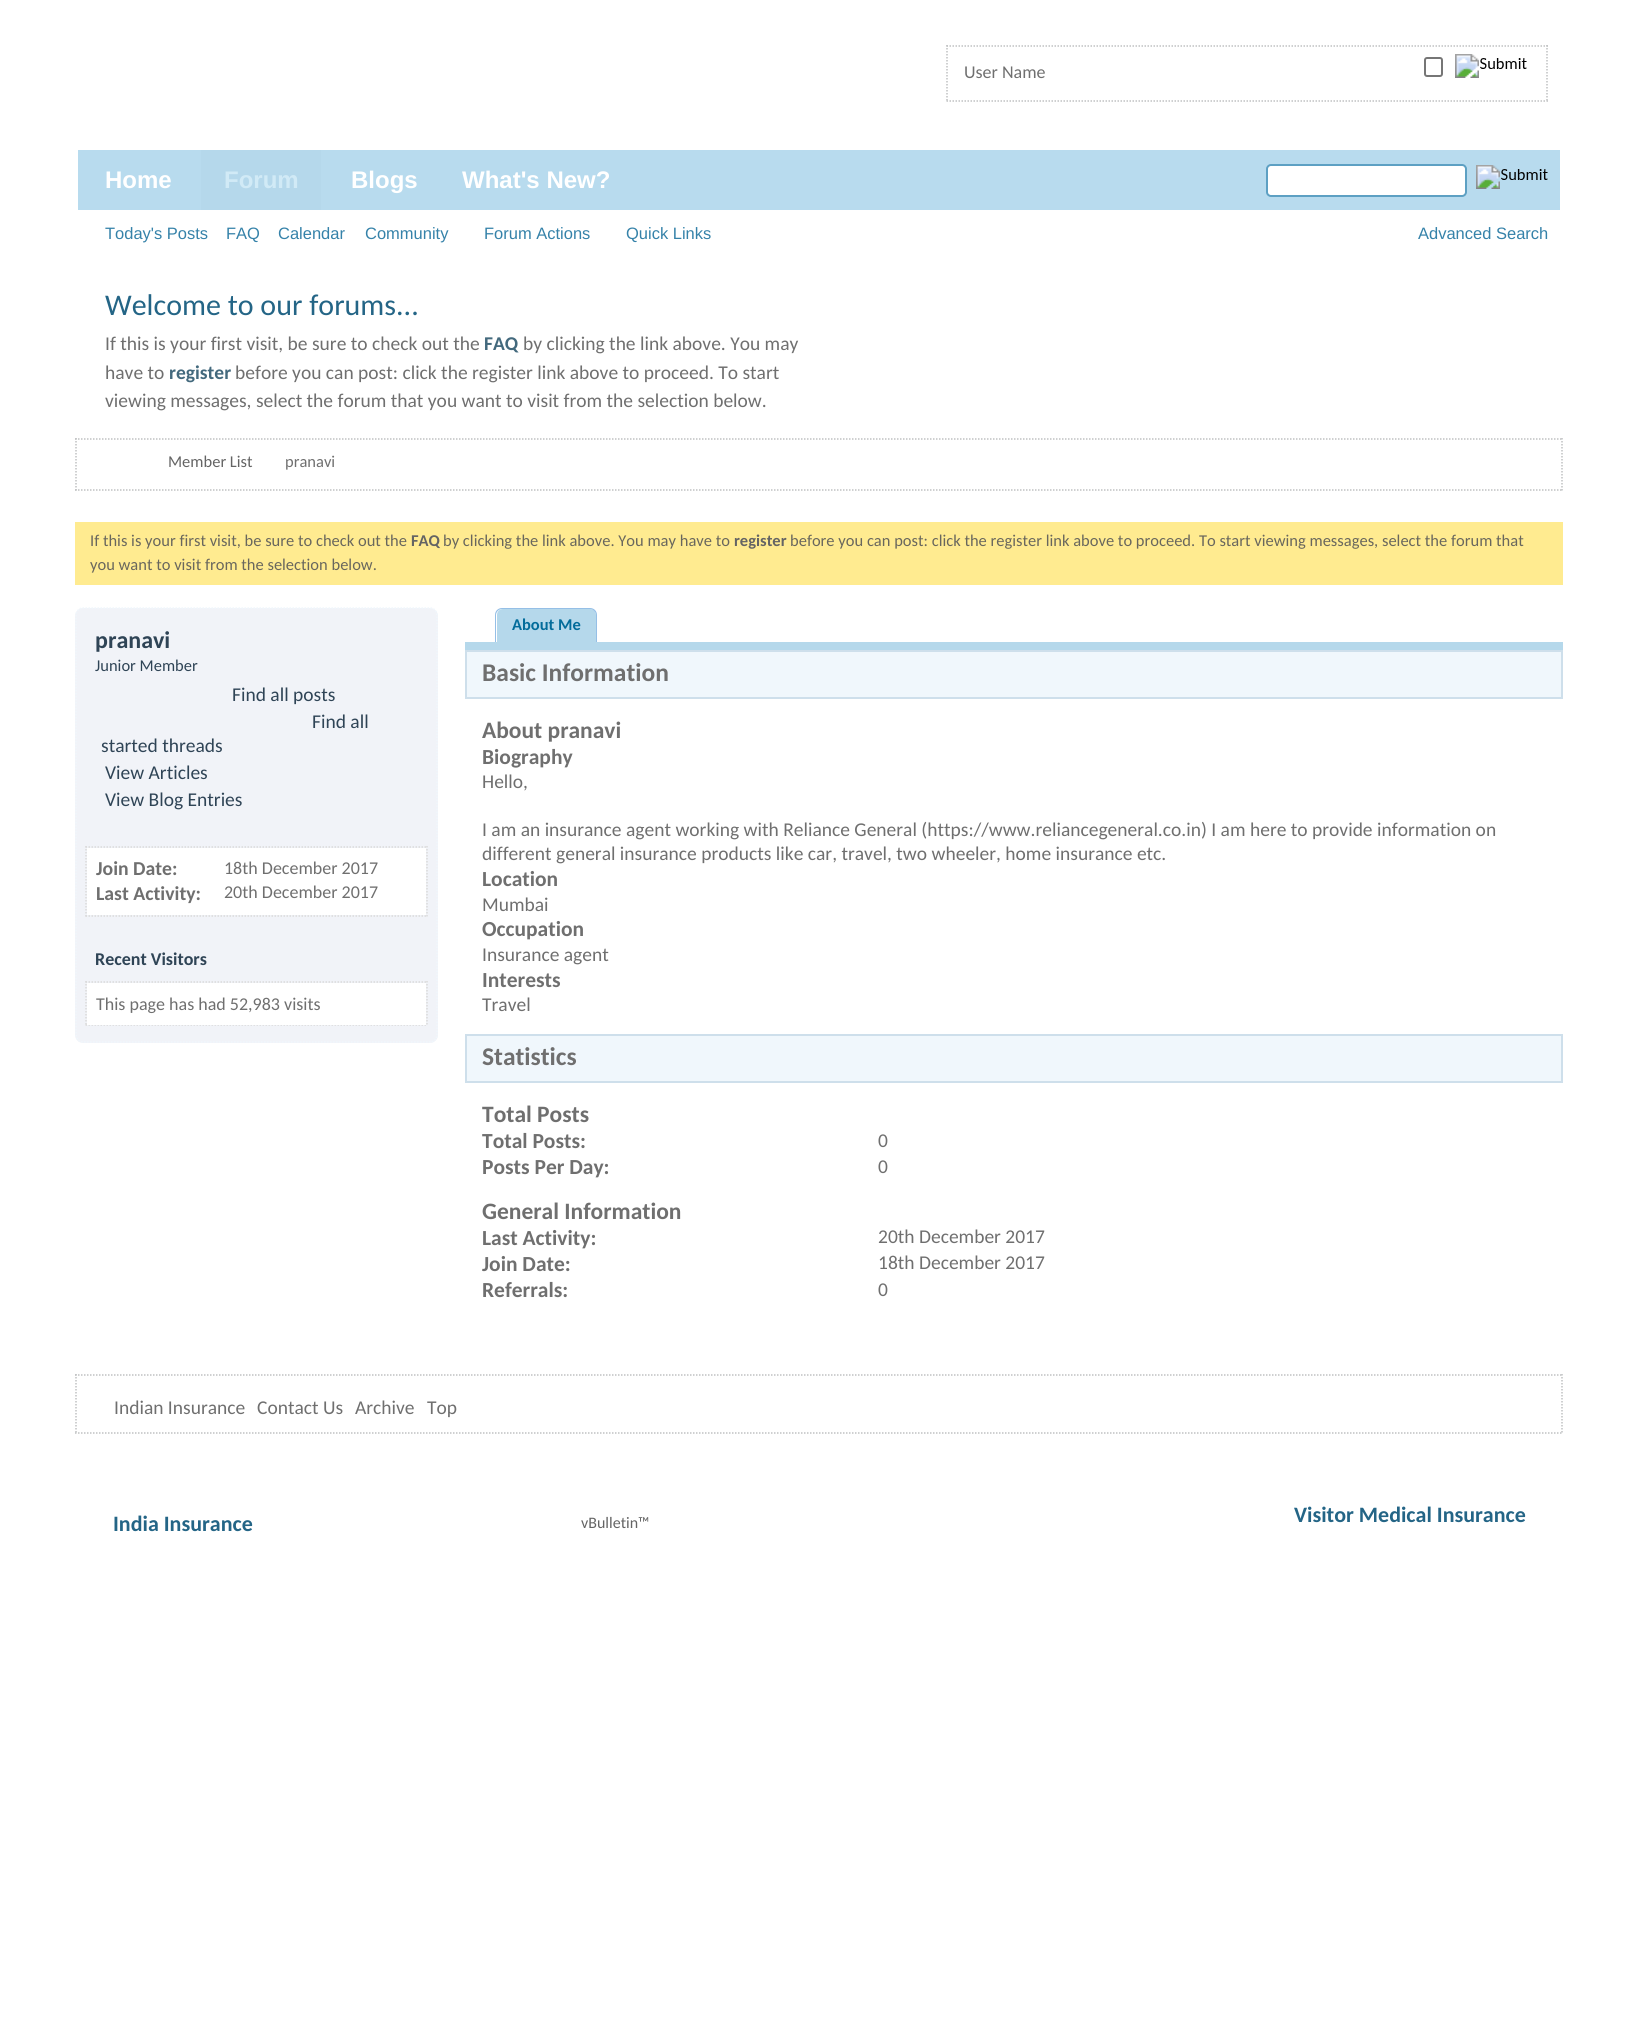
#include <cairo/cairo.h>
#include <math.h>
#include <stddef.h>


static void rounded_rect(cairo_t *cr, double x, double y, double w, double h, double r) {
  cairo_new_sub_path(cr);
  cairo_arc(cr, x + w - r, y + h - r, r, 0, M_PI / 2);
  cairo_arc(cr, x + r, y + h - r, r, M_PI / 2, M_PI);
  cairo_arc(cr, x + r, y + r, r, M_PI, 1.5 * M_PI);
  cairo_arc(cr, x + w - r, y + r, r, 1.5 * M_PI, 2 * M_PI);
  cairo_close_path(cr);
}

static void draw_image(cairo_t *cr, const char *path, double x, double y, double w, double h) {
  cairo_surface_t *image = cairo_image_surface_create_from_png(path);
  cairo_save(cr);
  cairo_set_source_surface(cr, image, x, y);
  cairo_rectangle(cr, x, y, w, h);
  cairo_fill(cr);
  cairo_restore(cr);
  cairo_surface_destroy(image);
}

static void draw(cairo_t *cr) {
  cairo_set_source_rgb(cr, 1, 1, 1);
  cairo_paint(cr);
  cairo_new_path(cr);
  cairo_move_to(cr, 946.5, 46);
  cairo_line_to(cr, 1548, 46);
  cairo_set_source_rgb(cr, 191 / 255.0, 193 / 255.0, 194 / 255.0);
  cairo_set_line_width(cr, 1.5);
  cairo_set_dash(cr, (double[]){1.5, 1.5}, 2, 0);
  cairo_stroke(cr);
  cairo_new_path(cr);
  cairo_move_to(cr, 1547, 45);
  cairo_line_to(cr, 1547, 102);
  cairo_stroke(cr);
  cairo_new_path(cr);
  cairo_move_to(cr, 946.5, 101);
  cairo_line_to(cr, 1548, 101);
  cairo_stroke(cr);
  cairo_new_path(cr);
  cairo_move_to(cr, 947, 45);
  cairo_line_to(cr, 947, 102);
  cairo_stroke(cr);
  rounded_rect(cr, 1425, 58, 17, 18, 2);
  cairo_set_source_rgb(cr, 118 / 255.0, 118 / 255.0, 118 / 255.0);
  cairo_set_line_width(cr, 2);
  cairo_set_dash(cr, NULL, 0, 0);
  cairo_stroke(cr);
  draw_image(cr, "images/1.png", 1455, 54, 72, 24);
  cairo_set_source_rgb(cr, 184 / 255.0, 219 / 255.0, 238 / 255.0);
  cairo_rectangle(cr, 78, 150, 1482, 60);
  cairo_fill(cr);
  cairo_set_source_rgb(cr, 181 / 255.0, 216 / 255.0, 235 / 255.0);
  cairo_rectangle(cr, 201, 150, 120, 60);
  cairo_fill(cr);
  cairo_set_source_rgb(cr, 1, 1, 1);
  rounded_rect(cr, 1267, 165, 199, 31, 4);
  cairo_fill_preserve(cr);
  cairo_set_source_rgb(cr, 93 / 255.0, 160 / 255.0, 195 / 255.0);
  cairo_stroke(cr);
  draw_image(cr, "images/2.png", 1476, 165, 72, 24);
  cairo_new_path(cr);
  cairo_move_to(cr, 75, 439);
  cairo_line_to(cr, 1563, 439);
  cairo_set_source_rgb(cr, 191 / 255.0, 193 / 255.0, 194 / 255.0);
  cairo_set_line_width(cr, 1.5);
  cairo_set_dash(cr, (double[]){1.5, 1.5}, 2, 0);
  cairo_stroke(cr);
  cairo_new_path(cr);
  cairo_move_to(cr, 1562, 438);
  cairo_line_to(cr, 1562, 490.5);
  cairo_stroke(cr);
  cairo_new_path(cr);
  cairo_move_to(cr, 75, 490);
  cairo_line_to(cr, 1563, 490);
  cairo_stroke(cr);
  cairo_new_path(cr);
  cairo_move_to(cr, 76, 438);
  cairo_line_to(cr, 76, 490.5);
  cairo_stroke(cr);
  cairo_set_source_rgb(cr, 1, 235 / 255.0, 144 / 255.0);
  cairo_rectangle(cr, 75, 522, 1488, 63);
  cairo_fill(cr);
  cairo_set_source_rgb(cr, 241 / 255.0, 243 / 255.0, 248 / 255.0);
  rounded_rect(cr, 75, 608, 363, 435, 8);
  cairo_fill(cr);
  cairo_new_path(cr);
  cairo_move_to(cr, 82.5, 608);
  cairo_line_to(cr, 430.5, 608);
  cairo_curve_to(cr, 434, 608, 437, 611.5, 437, 615);
  cairo_line_to(cr, 437, 1035);
  cairo_curve_to(cr, 437, 1038.5, 434, 1042, 430.5, 1042);
  cairo_line_to(cr, 82.5, 1042);
  cairo_curve_to(cr, 79, 1042, 76, 1038.5, 76, 1035);
  cairo_line_to(cr, 76, 615);
  cairo_curve_to(cr, 76, 611.5, 79, 608, 82.5, 608);
  cairo_close_path(cr);
  cairo_set_source_rgb(cr, 240 / 255.0, 247 / 255.0, 252 / 255.0);
  cairo_stroke(cr);
  cairo_new_path(cr);
  cairo_move_to(cr, 85.5, 847);
  cairo_line_to(cr, 427.5, 847);
  cairo_set_source_rgb(cr, 218 / 255.0, 218 / 255.0, 218 / 255.0);
  cairo_stroke(cr);
  cairo_new_path(cr);
  cairo_move_to(cr, 427, 846);
  cairo_line_to(cr, 427, 916.5);
  cairo_stroke(cr);
  cairo_new_path(cr);
  cairo_move_to(cr, 85.5, 916);
  cairo_line_to(cr, 427.5, 916);
  cairo_stroke(cr);
  cairo_new_path(cr);
  cairo_move_to(cr, 86, 846);
  cairo_line_to(cr, 86, 916.5);
  cairo_stroke(cr);
  cairo_set_source_rgb(cr, 1, 1, 1);
  cairo_rectangle(cr, 87, 848, 339, 67);
  cairo_fill(cr);
  cairo_new_path(cr);
  cairo_move_to(cr, 85.5, 982);
  cairo_line_to(cr, 427.5, 982);
  cairo_set_source_rgb(cr, 218 / 255.0, 218 / 255.0, 218 / 255.0);
  cairo_stroke(cr);
  cairo_new_path(cr);
  cairo_move_to(cr, 427, 981);
  cairo_line_to(cr, 427, 1026);
  cairo_stroke(cr);
  cairo_new_path(cr);
  cairo_move_to(cr, 85.5, 1025);
  cairo_line_to(cr, 427.5, 1025);
  cairo_stroke(cr);
  cairo_new_path(cr);
  cairo_move_to(cr, 86, 981);
  cairo_line_to(cr, 86, 1026);
  cairo_stroke(cr);
  cairo_set_source_rgb(cr, 1, 1, 1);
  cairo_rectangle(cr, 87, 983, 339, 42);
  cairo_fill(cr);
  cairo_set_source_rgb(cr, 181 / 255.0, 216 / 255.0, 235 / 255.0);
  cairo_new_path(cr);
  cairo_move_to(cr, 503, 609);
  cairo_line_to(cr, 590, 609);
  cairo_curve_to(cr, 593.5, 609, 596, 611.5, 596, 615);
  cairo_line_to(cr, 596, 642);
  cairo_line_to(cr, 497, 642);
  cairo_line_to(cr, 497, 615);
  cairo_curve_to(cr, 497, 611.5, 499.5, 609, 503, 609);
  cairo_close_path(cr);
  cairo_fill(cr);
  cairo_set_source_rgb(cr, 149 / 255.0, 191 / 255.0, 230 / 255.0);
  cairo_set_fill_rule(cr, CAIRO_FILL_RULE_EVEN_ODD);
  cairo_new_path(cr);
  cairo_move_to(cr, 502, 608);
  cairo_line_to(cr, 590, 608);
  cairo_curve_to(cr, 594, 608, 597, 611, 597, 615);
  cairo_line_to(cr, 597, 642);
  cairo_line_to(cr, 495, 642);
  cairo_line_to(cr, 495, 615);
  cairo_curve_to(cr, 495, 611, 498, 608, 502, 608);
  cairo_close_path(cr);
  cairo_move_to(cr, 502, 609);
  cairo_line_to(cr, 590, 609);
  cairo_curve_to(cr, 593, 609, 596, 612, 596, 615);
  cairo_line_to(cr, 596, 642);
  cairo_line_to(cr, 496, 642);
  cairo_line_to(cr, 496, 615);
  cairo_curve_to(cr, 496, 612, 499, 609, 502, 609);
  cairo_close_path(cr);
  cairo_fill(cr);
  cairo_set_source_rgb(cr, 181 / 255.0, 216 / 255.0, 235 / 255.0);
  cairo_rectangle(cr, 465, 642, 1098, 8);
  cairo_fill(cr);
  cairo_set_source_rgb(cr, 240 / 255.0, 247 / 255.0, 252 / 255.0);
  cairo_rectangle(cr, 466, 651, 1096, 47);
  cairo_fill_preserve(cr);
  cairo_set_source_rgb(cr, 206 / 255.0, 223 / 255.0, 235 / 255.0);
  cairo_set_line_width(cr, 2);
  cairo_set_dash(cr, NULL, 0, 0);
  cairo_stroke(cr);
  cairo_set_source_rgb(cr, 240 / 255.0, 247 / 255.0, 252 / 255.0);
  cairo_rectangle(cr, 466, 1035, 1096, 47);
  cairo_fill_preserve(cr);
  cairo_set_source_rgb(cr, 206 / 255.0, 223 / 255.0, 235 / 255.0);
  cairo_stroke(cr);
  cairo_new_path(cr);
  cairo_move_to(cr, 75, 1375);
  cairo_line_to(cr, 1563, 1375);
  cairo_set_source_rgb(cr, 191 / 255.0, 193 / 255.0, 194 / 255.0);
  cairo_set_line_width(cr, 1.5);
  cairo_set_dash(cr, (double[]){1.5, 1.5}, 2, 0);
  cairo_stroke(cr);
  cairo_new_path(cr);
  cairo_move_to(cr, 1562, 1374);
  cairo_line_to(cr, 1562, 1434);
  cairo_stroke(cr);
  cairo_new_path(cr);
  cairo_move_to(cr, 75, 1433);
  cairo_line_to(cr, 1563, 1433);
  cairo_stroke(cr);
  cairo_new_path(cr);
  cairo_move_to(cr, 76, 1374);
  cairo_line_to(cr, 76, 1434);
  cairo_stroke(cr);
  cairo_select_font_face(cr, "Carlito", CAIRO_FONT_SLANT_NORMAL, CAIRO_FONT_WEIGHT_NORMAL);
  cairo_set_font_size(cr, 18);
  cairo_set_source_rgb(cr, 111 / 255.0, 111 / 255.0, 111 / 255.0);
  cairo_move_to(cr, 964, 78);
  cairo_show_text(cr, "User Name");
  cairo_select_font_face(cr, "Liberation Sans", CAIRO_FONT_SLANT_NORMAL, CAIRO_FONT_WEIGHT_BOLD);
  cairo_set_font_size(cr, 24);
  cairo_set_source_rgb(cr, 1, 1, 1);
  cairo_move_to(cr, 351, 188);
  cairo_show_text(cr, "Blogs");
  cairo_move_to(cr, 462, 188);
  cairo_show_text(cr, "What's New?");
  cairo_set_source_rgb(cr, 209 / 255.0, 234 / 255.0, 246 / 255.0);
  cairo_move_to(cr, 224, 188);
  cairo_show_text(cr, "Forum");
  cairo_select_font_face(cr, "Liberation Sans", CAIRO_FONT_SLANT_NORMAL, CAIRO_FONT_WEIGHT_NORMAL);
  cairo_set_font_size(cr, 16.5);
  cairo_set_source_rgb(cr, 53 / 255.0, 130 / 255.0, 169 / 255.0);
  cairo_move_to(cr, 105, 239);
  cairo_show_text(cr, "Today's Posts");
  cairo_move_to(cr, 226, 239);
  cairo_show_text(cr, "FAQ");
  cairo_move_to(cr, 278, 239);
  cairo_show_text(cr, "Calendar");
  cairo_move_to(cr, 365, 239);
  cairo_show_text(cr, "Community");
  cairo_move_to(cr, 484, 239);
  cairo_show_text(cr, "Forum Actions");
  cairo_move_to(cr, 626, 239);
  cairo_show_text(cr, "Quick Links");
  cairo_select_font_face(cr, "Liberation Sans", CAIRO_FONT_SLANT_NORMAL, CAIRO_FONT_WEIGHT_BOLD);
  cairo_set_font_size(cr, 24);
  cairo_set_source_rgb(cr, 1, 1, 1);
  cairo_move_to(cr, 105, 188);
  cairo_show_text(cr, "Home");
  cairo_select_font_face(cr, "Liberation Sans", CAIRO_FONT_SLANT_NORMAL, CAIRO_FONT_WEIGHT_NORMAL);
  cairo_set_font_size(cr, 16.5);
  cairo_set_source_rgb(cr, 53 / 255.0, 130 / 255.0, 169 / 255.0);
  cairo_move_to(cr, 1418, 239);
  cairo_show_text(cr, "Advanced Search");
  cairo_select_font_face(cr, "Carlito", CAIRO_FONT_SLANT_NORMAL, CAIRO_FONT_WEIGHT_NORMAL);
  cairo_set_font_size(cr, 30);
  cairo_set_source_rgb(cr, 36 / 255.0, 101 / 255.0, 134 / 255.0);
  cairo_move_to(cr, 105, 315);
  cairo_show_text(cr, "Welcome to our forums...");
  cairo_set_font_size(cr, 19.5);
  cairo_set_source_rgb(cr, 111 / 255.0, 111 / 255.0, 111 / 255.0);
  cairo_move_to(cr, 105, 350);
  cairo_show_text(cr, "If this is your first visit, be sure to check out the");
  cairo_select_font_face(cr, "Carlito", CAIRO_FONT_SLANT_NORMAL, CAIRO_FONT_WEIGHT_BOLD);
  cairo_set_source_rgb(cr, 67 / 255.0, 105 / 255.0, 125 / 255.0);
  cairo_move_to(cr, 484, 350);
  cairo_show_text(cr, "FAQ");
  cairo_select_font_face(cr, "Carlito", CAIRO_FONT_SLANT_NORMAL, CAIRO_FONT_WEIGHT_NORMAL);
  cairo_set_source_rgb(cr, 111 / 255.0, 111 / 255.0, 111 / 255.0);
  cairo_move_to(cr, 523, 350);
  cairo_show_text(cr, "by clicking the link above. You may");
  cairo_move_to(cr, 105, 379);
  cairo_show_text(cr, "have to");
  cairo_select_font_face(cr, "Carlito", CAIRO_FONT_SLANT_NORMAL, CAIRO_FONT_WEIGHT_BOLD);
  cairo_set_source_rgb(cr, 67 / 255.0, 105 / 255.0, 125 / 255.0);
  cairo_move_to(cr, 169, 379);
  cairo_show_text(cr, "register");
  cairo_select_font_face(cr, "Carlito", CAIRO_FONT_SLANT_NORMAL, CAIRO_FONT_WEIGHT_NORMAL);
  cairo_set_source_rgb(cr, 111 / 255.0, 111 / 255.0, 111 / 255.0);
  cairo_move_to(cr, 235, 379);
  cairo_show_text(cr, "before you can post: click the register link above to proceed. To start");
  cairo_move_to(cr, 105, 407);
  cairo_show_text(cr, "viewing messages, select the forum that you want to visit from the selection below.");
  cairo_set_font_size(cr, 16.5);
  cairo_set_source_rgb(cr, 100 / 255.0, 100 / 255.0, 100 / 255.0);
  cairo_move_to(cr, 168, 467);
  cairo_show_text(cr, "Member List");
  cairo_set_source_rgb(cr, 111 / 255.0, 111 / 255.0, 111 / 255.0);
  cairo_move_to(cr, 285, 467);
  cairo_show_text(cr, "pranavi");
  cairo_set_source_rgb(cr, 105 / 255.0, 103 / 255.0, 93 / 255.0);
  cairo_move_to(cr, 90, 546);
  cairo_show_text(cr, "If this is your first visit, be sure to check out the");
  cairo_select_font_face(cr, "Carlito", CAIRO_FONT_SLANT_NORMAL, CAIRO_FONT_WEIGHT_BOLD);
  cairo_set_source_rgb(cr, 100 / 255.0, 100 / 255.0, 100 / 255.0);
  cairo_move_to(cr, 411, 546);
  cairo_show_text(cr, "FAQ");
  cairo_select_font_face(cr, "Carlito", CAIRO_FONT_SLANT_NORMAL, CAIRO_FONT_WEIGHT_NORMAL);
  cairo_set_source_rgb(cr, 105 / 255.0, 103 / 255.0, 93 / 255.0);
  cairo_move_to(cr, 443, 546);
  cairo_show_text(cr, "by clicking the link above. You may have to");
  cairo_select_font_face(cr, "Carlito", CAIRO_FONT_SLANT_NORMAL, CAIRO_FONT_WEIGHT_BOLD);
  cairo_set_source_rgb(cr, 100 / 255.0, 100 / 255.0, 100 / 255.0);
  cairo_move_to(cr, 734, 546);
  cairo_show_text(cr, "register");
  cairo_select_font_face(cr, "Carlito", CAIRO_FONT_SLANT_NORMAL, CAIRO_FONT_WEIGHT_NORMAL);
  cairo_set_source_rgb(cr, 105 / 255.0, 103 / 255.0, 93 / 255.0);
  cairo_move_to(cr, 790, 546);
  cairo_show_text(cr, "before you can post: click the register link above to proceed. To start viewing messages, select the forum that");
  cairo_move_to(cr, 90, 570);
  cairo_show_text(cr, "you want to visit from the selection below.");
  cairo_select_font_face(cr, "Carlito", CAIRO_FONT_SLANT_NORMAL, CAIRO_FONT_WEIGHT_BOLD);
  cairo_set_font_size(cr, 24);
  cairo_set_source_rgb(cr, 47 / 255.0, 68 / 255.0, 86 / 255.0);
  cairo_move_to(cr, 95, 648);
  cairo_show_text(cr, "pranavi");
  cairo_select_font_face(cr, "Carlito", CAIRO_FONT_SLANT_NORMAL, CAIRO_FONT_WEIGHT_NORMAL);
  cairo_set_font_size(cr, 16.5);
  cairo_move_to(cr, 95, 671);
  cairo_show_text(cr, "Junior Member");
  cairo_set_font_size(cr, 19.5);
  cairo_move_to(cr, 232, 701);
  cairo_show_text(cr, "Find all posts");
  cairo_move_to(cr, 312, 728);
  cairo_show_text(cr, "Find all");
  cairo_move_to(cr, 101, 752);
  cairo_show_text(cr, "started threads");
  cairo_move_to(cr, 105, 779);
  cairo_show_text(cr, "View Articles");
  cairo_move_to(cr, 105, 806);
  cairo_show_text(cr, "View Blog Entries");
  cairo_select_font_face(cr, "Carlito", CAIRO_FONT_SLANT_NORMAL, CAIRO_FONT_WEIGHT_BOLD);
  cairo_set_font_size(cr, 19.75);
  cairo_set_source_rgb(cr, 111 / 255.0, 111 / 255.0, 111 / 255.0);
  cairo_move_to(cr, 96, 875);
  cairo_show_text(cr, "Join Date:");
  cairo_select_font_face(cr, "Carlito", CAIRO_FONT_SLANT_NORMAL, CAIRO_FONT_WEIGHT_NORMAL);
  cairo_set_font_size(cr, 18);
  cairo_move_to(cr, 224, 874);
  cairo_show_text(cr, "18th December 2017");
  cairo_select_font_face(cr, "Carlito", CAIRO_FONT_SLANT_NORMAL, CAIRO_FONT_WEIGHT_BOLD);
  cairo_set_font_size(cr, 19.75);
  cairo_move_to(cr, 96, 900);
  cairo_show_text(cr, "Last Activity:");
  cairo_select_font_face(cr, "Carlito", CAIRO_FONT_SLANT_NORMAL, CAIRO_FONT_WEIGHT_NORMAL);
  cairo_set_font_size(cr, 18);
  cairo_move_to(cr, 224, 898);
  cairo_show_text(cr, "20th December 2017");
  cairo_select_font_face(cr, "Carlito", CAIRO_FONT_SLANT_NORMAL, CAIRO_FONT_WEIGHT_BOLD);
  cairo_set_source_rgb(cr, 47 / 255.0, 68 / 255.0, 86 / 255.0);
  cairo_move_to(cr, 95, 965);
  cairo_show_text(cr, "Recent Visitors");
  cairo_select_font_face(cr, "Carlito", CAIRO_FONT_SLANT_NORMAL, CAIRO_FONT_WEIGHT_NORMAL);
  cairo_set_source_rgb(cr, 111 / 255.0, 111 / 255.0, 111 / 255.0);
  cairo_move_to(cr, 96, 1010);
  cairo_show_text(cr, "This page has had 52,983 visits");
  cairo_select_font_face(cr, "Carlito", CAIRO_FONT_SLANT_NORMAL, CAIRO_FONT_WEIGHT_BOLD);
  cairo_set_font_size(cr, 16.5);
  cairo_set_source_rgb(cr, 3 / 255.0, 108 / 255.0, 155 / 255.0);
  cairo_move_to(cr, 512, 630);
  cairo_show_text(cr, "About Me");
  cairo_set_font_size(cr, 25.5);
  cairo_set_source_rgb(cr, 111 / 255.0, 111 / 255.0, 111 / 255.0);
  cairo_move_to(cr, 482, 681);
  cairo_show_text(cr, "Basic Information");
  cairo_set_font_size(cr, 23.5);
  cairo_move_to(cr, 482, 738);
  cairo_show_text(cr, "About pranavi");
  cairo_set_font_size(cr, 21.5);
  cairo_move_to(cr, 482, 764);
  cairo_show_text(cr, "Biography");
  cairo_select_font_face(cr, "Carlito", CAIRO_FONT_SLANT_NORMAL, CAIRO_FONT_WEIGHT_NORMAL);
  cairo_set_font_size(cr, 19.5);
  cairo_move_to(cr, 482, 788);
  cairo_show_text(cr, "Hello,");
  cairo_move_to(cr, 482, 836);
  cairo_show_text(cr, "I am an insurance agent working with Reliance General (https://www.reliancegeneral.co.in) I am here to provide information on");
  cairo_move_to(cr, 482, 860);
  cairo_show_text(cr, "different general insurance products like car, travel, two wheeler, home insurance etc.");
  cairo_select_font_face(cr, "Carlito", CAIRO_FONT_SLANT_NORMAL, CAIRO_FONT_WEIGHT_BOLD);
  cairo_set_font_size(cr, 21.5);
  cairo_move_to(cr, 482, 886);
  cairo_show_text(cr, "Location");
  cairo_select_font_face(cr, "Carlito", CAIRO_FONT_SLANT_NORMAL, CAIRO_FONT_WEIGHT_NORMAL);
  cairo_set_font_size(cr, 19.5);
  cairo_move_to(cr, 482, 911);
  cairo_show_text(cr, "Mumbai");
  cairo_select_font_face(cr, "Carlito", CAIRO_FONT_SLANT_NORMAL, CAIRO_FONT_WEIGHT_BOLD);
  cairo_set_font_size(cr, 21.5);
  cairo_move_to(cr, 482, 936);
  cairo_show_text(cr, "Occupation");
  cairo_select_font_face(cr, "Carlito", CAIRO_FONT_SLANT_NORMAL, CAIRO_FONT_WEIGHT_NORMAL);
  cairo_set_font_size(cr, 19.5);
  cairo_move_to(cr, 482, 961);
  cairo_show_text(cr, "Insurance agent");
  cairo_select_font_face(cr, "Carlito", CAIRO_FONT_SLANT_NORMAL, CAIRO_FONT_WEIGHT_BOLD);
  cairo_set_font_size(cr, 21.5);
  cairo_move_to(cr, 482, 987);
  cairo_show_text(cr, "Interests");
  cairo_select_font_face(cr, "Carlito", CAIRO_FONT_SLANT_NORMAL, CAIRO_FONT_WEIGHT_NORMAL);
  cairo_set_font_size(cr, 19.5);
  cairo_move_to(cr, 482, 1011);
  cairo_show_text(cr, "Travel");
  cairo_select_font_face(cr, "Carlito", CAIRO_FONT_SLANT_NORMAL, CAIRO_FONT_WEIGHT_BOLD);
  cairo_set_font_size(cr, 25.5);
  cairo_move_to(cr, 482, 1065);
  cairo_show_text(cr, "Statistics");
  cairo_set_font_size(cr, 23.5);
  cairo_move_to(cr, 482, 1122);
  cairo_show_text(cr, "Total Posts");
  cairo_set_font_size(cr, 21.5);
  cairo_move_to(cr, 482, 1148);
  cairo_show_text(cr, "Total Posts:");
  cairo_select_font_face(cr, "Carlito", CAIRO_FONT_SLANT_NORMAL, CAIRO_FONT_WEIGHT_NORMAL);
  cairo_set_font_size(cr, 19.5);
  cairo_move_to(cr, 878, 1147);
  cairo_show_text(cr, "0");
  cairo_select_font_face(cr, "Carlito", CAIRO_FONT_SLANT_NORMAL, CAIRO_FONT_WEIGHT_BOLD);
  cairo_set_font_size(cr, 21.5);
  cairo_move_to(cr, 482, 1174);
  cairo_show_text(cr, "Posts Per Day:");
  cairo_select_font_face(cr, "Carlito", CAIRO_FONT_SLANT_NORMAL, CAIRO_FONT_WEIGHT_NORMAL);
  cairo_set_font_size(cr, 19.5);
  cairo_move_to(cr, 878, 1173);
  cairo_show_text(cr, "0");
  cairo_select_font_face(cr, "Carlito", CAIRO_FONT_SLANT_NORMAL, CAIRO_FONT_WEIGHT_BOLD);
  cairo_set_font_size(cr, 23.5);
  cairo_move_to(cr, 482, 1219);
  cairo_show_text(cr, "General Information");
  cairo_set_font_size(cr, 21.5);
  cairo_move_to(cr, 482, 1245);
  cairo_show_text(cr, "Last Activity:");
  cairo_select_font_face(cr, "Carlito", CAIRO_FONT_SLANT_NORMAL, CAIRO_FONT_WEIGHT_NORMAL);
  cairo_set_font_size(cr, 19.5);
  cairo_move_to(cr, 878, 1243);
  cairo_show_text(cr, "20th December 2017");
  cairo_select_font_face(cr, "Carlito", CAIRO_FONT_SLANT_NORMAL, CAIRO_FONT_WEIGHT_BOLD);
  cairo_set_font_size(cr, 21.5);
  cairo_move_to(cr, 482, 1271);
  cairo_show_text(cr, "Join Date:");
  cairo_select_font_face(cr, "Carlito", CAIRO_FONT_SLANT_NORMAL, CAIRO_FONT_WEIGHT_NORMAL);
  cairo_set_font_size(cr, 19.5);
  cairo_move_to(cr, 878, 1269);
  cairo_show_text(cr, "18th December 2017");
  cairo_select_font_face(cr, "Carlito", CAIRO_FONT_SLANT_NORMAL, CAIRO_FONT_WEIGHT_BOLD);
  cairo_set_font_size(cr, 21.5);
  cairo_move_to(cr, 482, 1297);
  cairo_show_text(cr, "Referrals:");
  cairo_select_font_face(cr, "Carlito", CAIRO_FONT_SLANT_NORMAL, CAIRO_FONT_WEIGHT_NORMAL);
  cairo_set_font_size(cr, 19.5);
  cairo_move_to(cr, 878, 1296);
  cairo_show_text(cr, "0");
  cairo_move_to(cr, 114, 1414);
  cairo_show_text(cr, "Indian Insurance");
  cairo_move_to(cr, 257, 1414);
  cairo_show_text(cr, "Contact Us");
  cairo_move_to(cr, 355, 1414);
  cairo_show_text(cr, "Archive");
  cairo_move_to(cr, 427, 1414);
  cairo_show_text(cr, "Top");
  cairo_select_font_face(cr, "Carlito", CAIRO_FONT_SLANT_NORMAL, CAIRO_FONT_WEIGHT_BOLD);
  cairo_set_font_size(cr, 22);
  cairo_set_source_rgb(cr, 36 / 255.0, 101 / 255.0, 134 / 255.0);
  cairo_move_to(cr, 113, 1531);
  cairo_show_text(cr, "India Insurance");
  cairo_select_font_face(cr, "Carlito", CAIRO_FONT_SLANT_NORMAL, CAIRO_FONT_WEIGHT_NORMAL);
  cairo_set_font_size(cr, 16);
  cairo_set_source_rgb(cr, 100 / 255.0, 100 / 255.0, 100 / 255.0);
  cairo_move_to(cr, 581, 1528);
  cairo_show_text(cr, "vBulletin™");
  cairo_select_font_face(cr, "Carlito", CAIRO_FONT_SLANT_NORMAL, CAIRO_FONT_WEIGHT_BOLD);
  cairo_set_font_size(cr, 22);
  cairo_set_source_rgb(cr, 36 / 255.0, 101 / 255.0, 134 / 255.0);
  cairo_move_to(cr, 1294, 1522);
  cairo_show_text(cr, "Visitor Medical Insurance");
}

int main(void) {
  cairo_surface_t *surface = cairo_image_surface_create(CAIRO_FORMAT_RGB24, 1637, 2026);
  cairo_t *cr = cairo_create(surface);
  cairo_font_options_t *options = cairo_font_options_create();
  cairo_font_options_set_hint_metrics(options, CAIRO_HINT_METRICS_OFF);
  cairo_font_options_set_hint_style(options, CAIRO_HINT_STYLE_NONE);
  cairo_set_font_options(cr, options);
  cairo_set_miter_limit(cr, 4);
  draw(cr);
  cairo_surface_write_to_png(surface, "out.png");
  cairo_font_options_destroy(options);
  cairo_destroy(cr);
  cairo_surface_destroy(surface);
  return 0;
}
